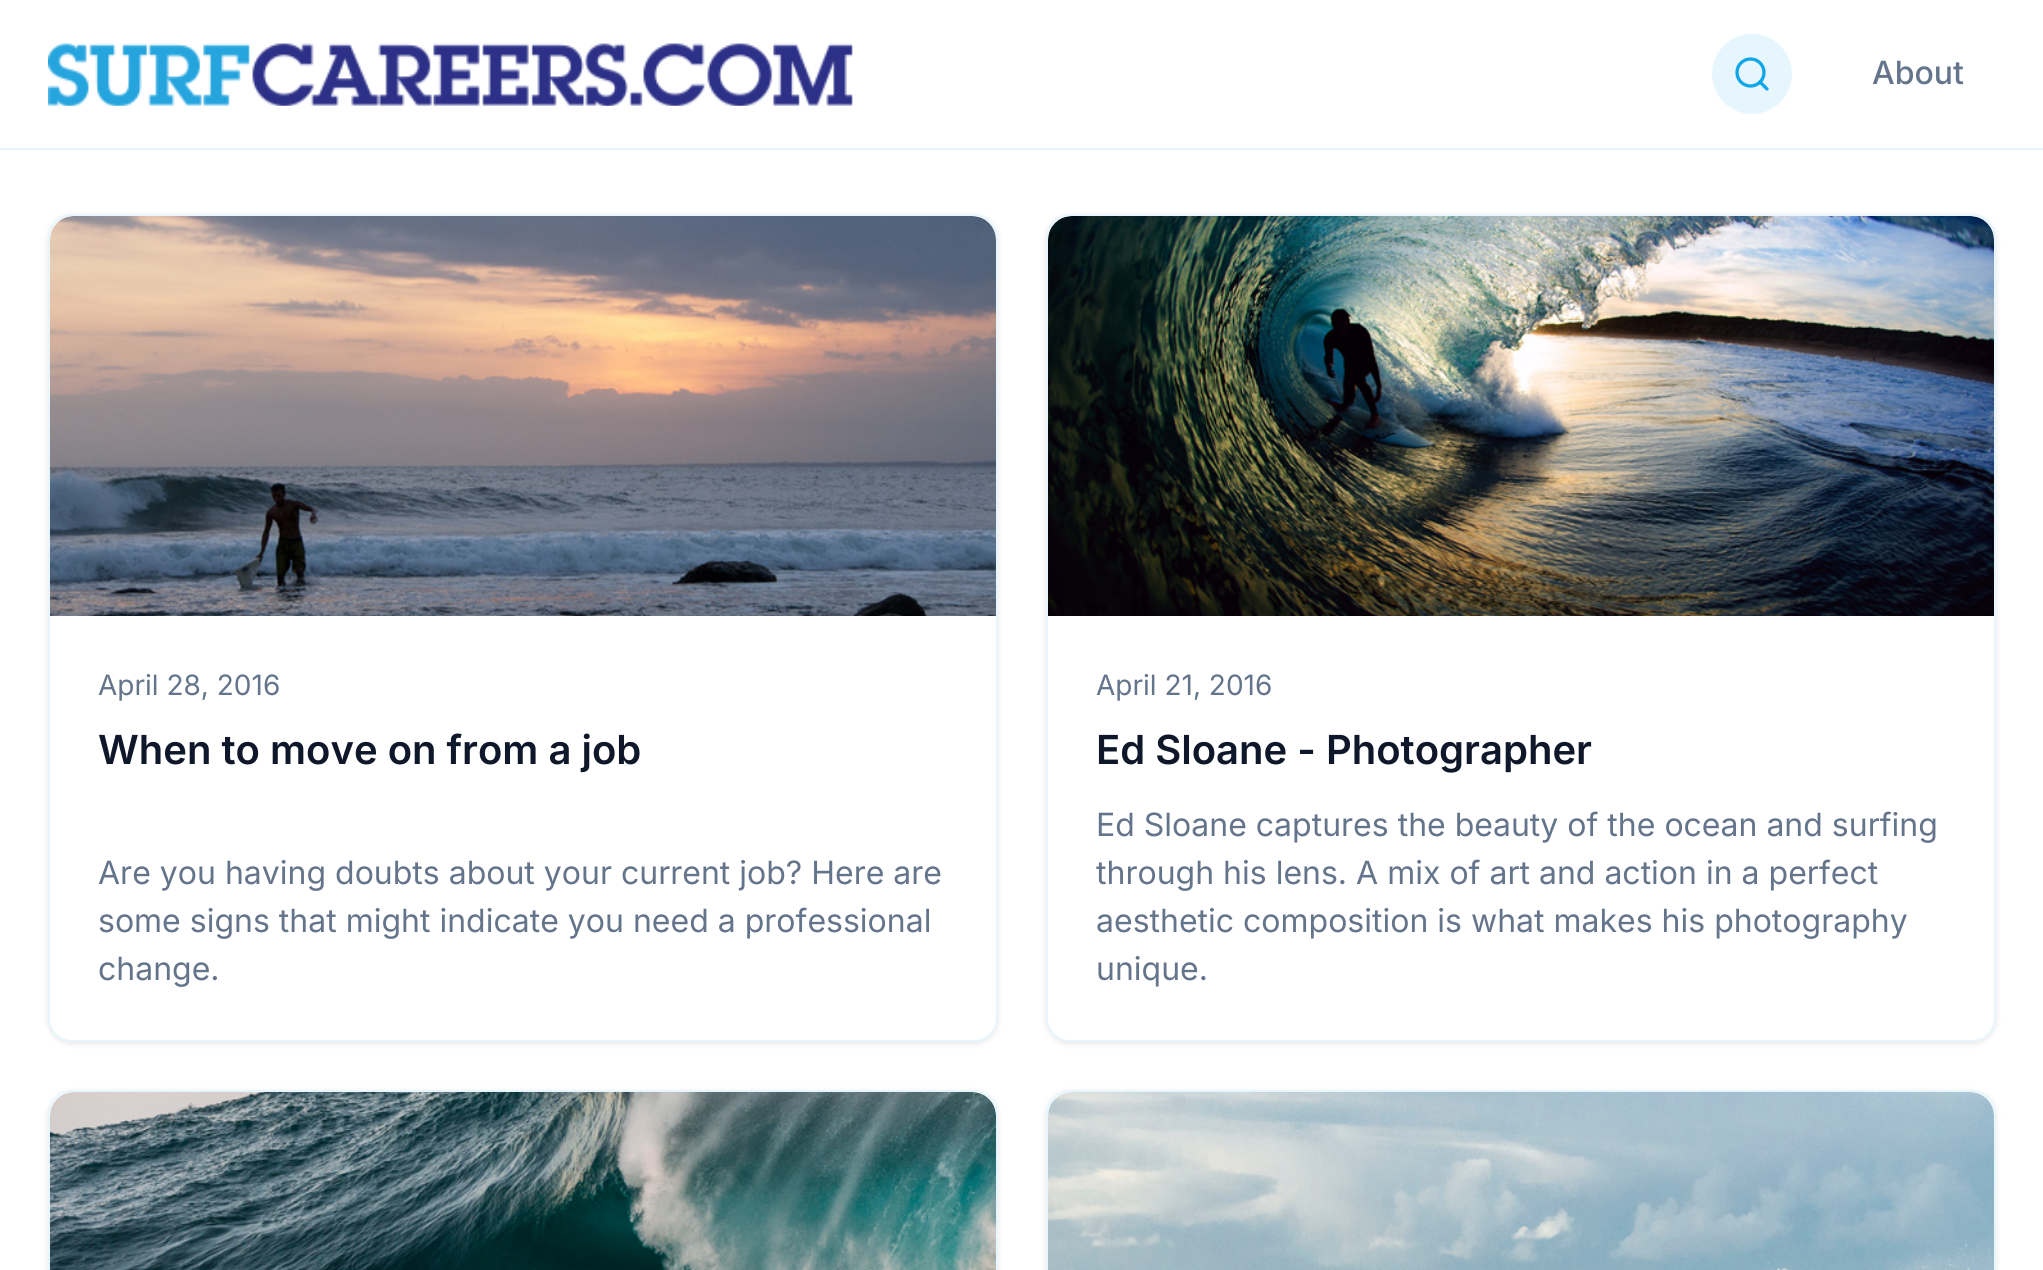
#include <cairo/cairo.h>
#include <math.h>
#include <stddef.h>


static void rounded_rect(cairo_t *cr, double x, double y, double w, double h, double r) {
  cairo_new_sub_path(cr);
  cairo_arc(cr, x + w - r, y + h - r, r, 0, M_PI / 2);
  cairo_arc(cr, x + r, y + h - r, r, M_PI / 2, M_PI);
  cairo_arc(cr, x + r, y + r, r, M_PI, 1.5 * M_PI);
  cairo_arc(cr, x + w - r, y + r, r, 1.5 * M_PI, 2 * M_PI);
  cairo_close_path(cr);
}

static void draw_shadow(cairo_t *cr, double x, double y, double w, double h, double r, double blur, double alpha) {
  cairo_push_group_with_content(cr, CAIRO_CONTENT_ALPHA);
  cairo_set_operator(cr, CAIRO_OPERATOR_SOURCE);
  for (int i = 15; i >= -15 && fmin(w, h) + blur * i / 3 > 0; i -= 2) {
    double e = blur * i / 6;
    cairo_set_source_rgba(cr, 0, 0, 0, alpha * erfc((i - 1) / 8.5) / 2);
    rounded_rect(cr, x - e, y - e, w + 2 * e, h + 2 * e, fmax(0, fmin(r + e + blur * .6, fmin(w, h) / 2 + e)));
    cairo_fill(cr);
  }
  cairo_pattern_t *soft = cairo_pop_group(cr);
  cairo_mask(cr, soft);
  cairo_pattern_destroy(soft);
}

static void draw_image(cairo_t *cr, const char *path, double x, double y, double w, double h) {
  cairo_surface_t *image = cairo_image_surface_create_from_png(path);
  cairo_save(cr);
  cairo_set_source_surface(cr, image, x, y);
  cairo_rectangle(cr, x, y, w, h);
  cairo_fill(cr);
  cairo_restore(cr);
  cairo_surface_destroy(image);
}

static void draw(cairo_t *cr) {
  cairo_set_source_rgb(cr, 1, 1, 1);
  cairo_paint(cr);
  cairo_set_source_rgb(cr, 231 / 255.0, 246 / 255.0, 253 / 255.0);
  cairo_rectangle(cr, 0, 148, 2043, 2);
  cairo_fill(cr);
  draw_image(cr, "images/1.png", 48, 43, 805, 63);
  cairo_arc(cr, 1752, 74, 40, 0, 2 * M_PI);
  cairo_fill(cr);
  cairo_arc(cr, 1750.5, 72.5, 13.5, 0, 2 * M_PI);
  cairo_set_source_rgb(cr, 14 / 255.0, 165 / 255.0, 233 / 255.0);
  cairo_set_line_width(cr, 3.3);
  cairo_stroke(cr);
  cairo_new_path(cr);
  cairo_move_to(cr, 1767, 89);
  cairo_line_to(cr, 1760, 82);
  cairo_set_line_cap(cr, CAIRO_LINE_CAP_ROUND);
  cairo_set_line_join(cr, CAIRO_LINE_JOIN_ROUND);
  cairo_stroke(cr);
  cairo_set_source_rgb(cr, 0, 0, 0);
  draw_shadow(cr, 48, 216, 950, 828, 24, 3, 0.1);
  cairo_set_source_rgb(cr, 1, 1, 1);
  rounded_rect(cr, 48, 214, 950, 828, 24);
  cairo_fill(cr);
  rounded_rect(cr, 49, 215, 948, 826, 23);
  cairo_set_source_rgba(cr, 14 / 255.0, 165 / 255.0, 233 / 255.0, 0.1);
  cairo_set_line_width(cr, 2);
  cairo_set_line_cap(cr, CAIRO_LINE_CAP_BUTT);
  cairo_set_line_join(cr, CAIRO_LINE_JOIN_MITER);
  cairo_stroke(cr);
  draw_image(cr, "images/2.png", 50, 216, 946, 400);
  cairo_set_source_rgb(cr, 0, 0, 0);
  draw_shadow(cr, 1046, 216, 950, 828, 24, 3, 0.1);
  cairo_set_source_rgb(cr, 1, 1, 1);
  rounded_rect(cr, 1046, 214, 950, 828, 24);
  cairo_fill(cr);
  rounded_rect(cr, 1047, 215, 948, 826, 23);
  cairo_set_source_rgba(cr, 14 / 255.0, 165 / 255.0, 233 / 255.0, 0.1);
  cairo_stroke(cr);
  draw_image(cr, "images/3.png", 1048, 216, 946, 400);
  cairo_set_source_rgb(cr, 0, 0, 0);
  draw_shadow(cr, 48, 1092, 950, 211, 24, 3, 0.1);
  cairo_set_source_rgb(cr, 1, 1, 1);
  rounded_rect(cr, 49, 1091, 948, 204, 23);
  cairo_fill_preserve(cr);
  cairo_set_source_rgb(cr, 231 / 255.0, 246 / 255.0, 253 / 255.0);
  cairo_stroke(cr);
  draw_image(cr, "images/4.png", 50, 1092, 946, 178);
  cairo_set_source_rgb(cr, 0, 0, 0);
  draw_shadow(cr, 1046, 1092, 950, 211, 24, 3, 0.1);
  cairo_set_source_rgb(cr, 1, 1, 1);
  rounded_rect(cr, 1047, 1091, 948, 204, 23);
  cairo_fill_preserve(cr);
  cairo_set_source_rgb(cr, 231 / 255.0, 246 / 255.0, 253 / 255.0);
  cairo_stroke(cr);
  draw_image(cr, "images/5.png", 1048, 1092, 946, 178);
  cairo_select_font_face(cr, "Inter Medium", CAIRO_FONT_SLANT_NORMAL, CAIRO_FONT_WEIGHT_NORMAL);
  cairo_set_font_size(cr, 32);
  cairo_set_source_rgb(cr, 100 / 255.0, 116 / 255.0, 139 / 255.0);
  cairo_move_to(cr, 1872, 84);
  cairo_show_text(cr, "About");
  cairo_select_font_face(cr, "Inter", CAIRO_FONT_SLANT_NORMAL, CAIRO_FONT_WEIGHT_NORMAL);
  cairo_set_font_size(cr, 28);
  cairo_move_to(cr, 98, 695);
  cairo_show_text(cr, "April 28, 2016");
  cairo_select_font_face(cr, "Inter SemiBold", CAIRO_FONT_SLANT_NORMAL, CAIRO_FONT_WEIGHT_NORMAL);
  cairo_set_font_size(cr, 40);
  cairo_set_source_rgb(cr, 15 / 255.0, 23 / 255.0, 42 / 255.0);
  cairo_move_to(cr, 98, 764);
  cairo_show_text(cr, "When to move on from a job");
  cairo_select_font_face(cr, "Inter", CAIRO_FONT_SLANT_NORMAL, CAIRO_FONT_WEIGHT_NORMAL);
  cairo_set_font_size(cr, 32);
  cairo_set_source_rgb(cr, 100 / 255.0, 116 / 255.0, 139 / 255.0);
  cairo_move_to(cr, 98, 884);
  cairo_show_text(cr, "Are you having doubts about your current job? Here are");
  cairo_move_to(cr, 98, 932);
  cairo_show_text(cr, "some signs that might indicate you need a professional");
  cairo_move_to(cr, 98, 980);
  cairo_show_text(cr, "change.");
  cairo_set_font_size(cr, 28);
  cairo_move_to(cr, 1096, 695);
  cairo_show_text(cr, "April 21, 2016");
  cairo_select_font_face(cr, "Inter SemiBold", CAIRO_FONT_SLANT_NORMAL, CAIRO_FONT_WEIGHT_NORMAL);
  cairo_set_font_size(cr, 40);
  cairo_set_source_rgb(cr, 15 / 255.0, 23 / 255.0, 42 / 255.0);
  cairo_move_to(cr, 1096, 764);
  cairo_show_text(cr, "Ed Sloane - Photographer");
  cairo_select_font_face(cr, "Inter", CAIRO_FONT_SLANT_NORMAL, CAIRO_FONT_WEIGHT_NORMAL);
  cairo_set_font_size(cr, 32);
  cairo_set_source_rgb(cr, 100 / 255.0, 116 / 255.0, 139 / 255.0);
  cairo_move_to(cr, 1096, 836);
  cairo_show_text(cr, "Ed Sloane captures the beauty of the ocean and surfing");
  cairo_move_to(cr, 1096, 884);
  cairo_show_text(cr, "through his lens. A mix of art and action in a perfect");
  cairo_move_to(cr, 1096, 932);
  cairo_show_text(cr, "aesthetic composition is what makes his photography");
  cairo_move_to(cr, 1096, 980);
  cairo_show_text(cr, "unique.");
}

int main(void) {
  cairo_surface_t *surface = cairo_image_surface_create(CAIRO_FORMAT_RGB24, 2043, 1270);
  cairo_t *cr = cairo_create(surface);
  cairo_font_options_t *options = cairo_font_options_create();
  cairo_font_options_set_hint_metrics(options, CAIRO_HINT_METRICS_OFF);
  cairo_font_options_set_hint_style(options, CAIRO_HINT_STYLE_NONE);
  cairo_set_font_options(cr, options);
  cairo_set_miter_limit(cr, 4);
  draw(cr);
  cairo_surface_write_to_png(surface, "out.png");
  cairo_font_options_destroy(options);
  cairo_destroy(cr);
  cairo_surface_destroy(surface);
  return 0;
}
